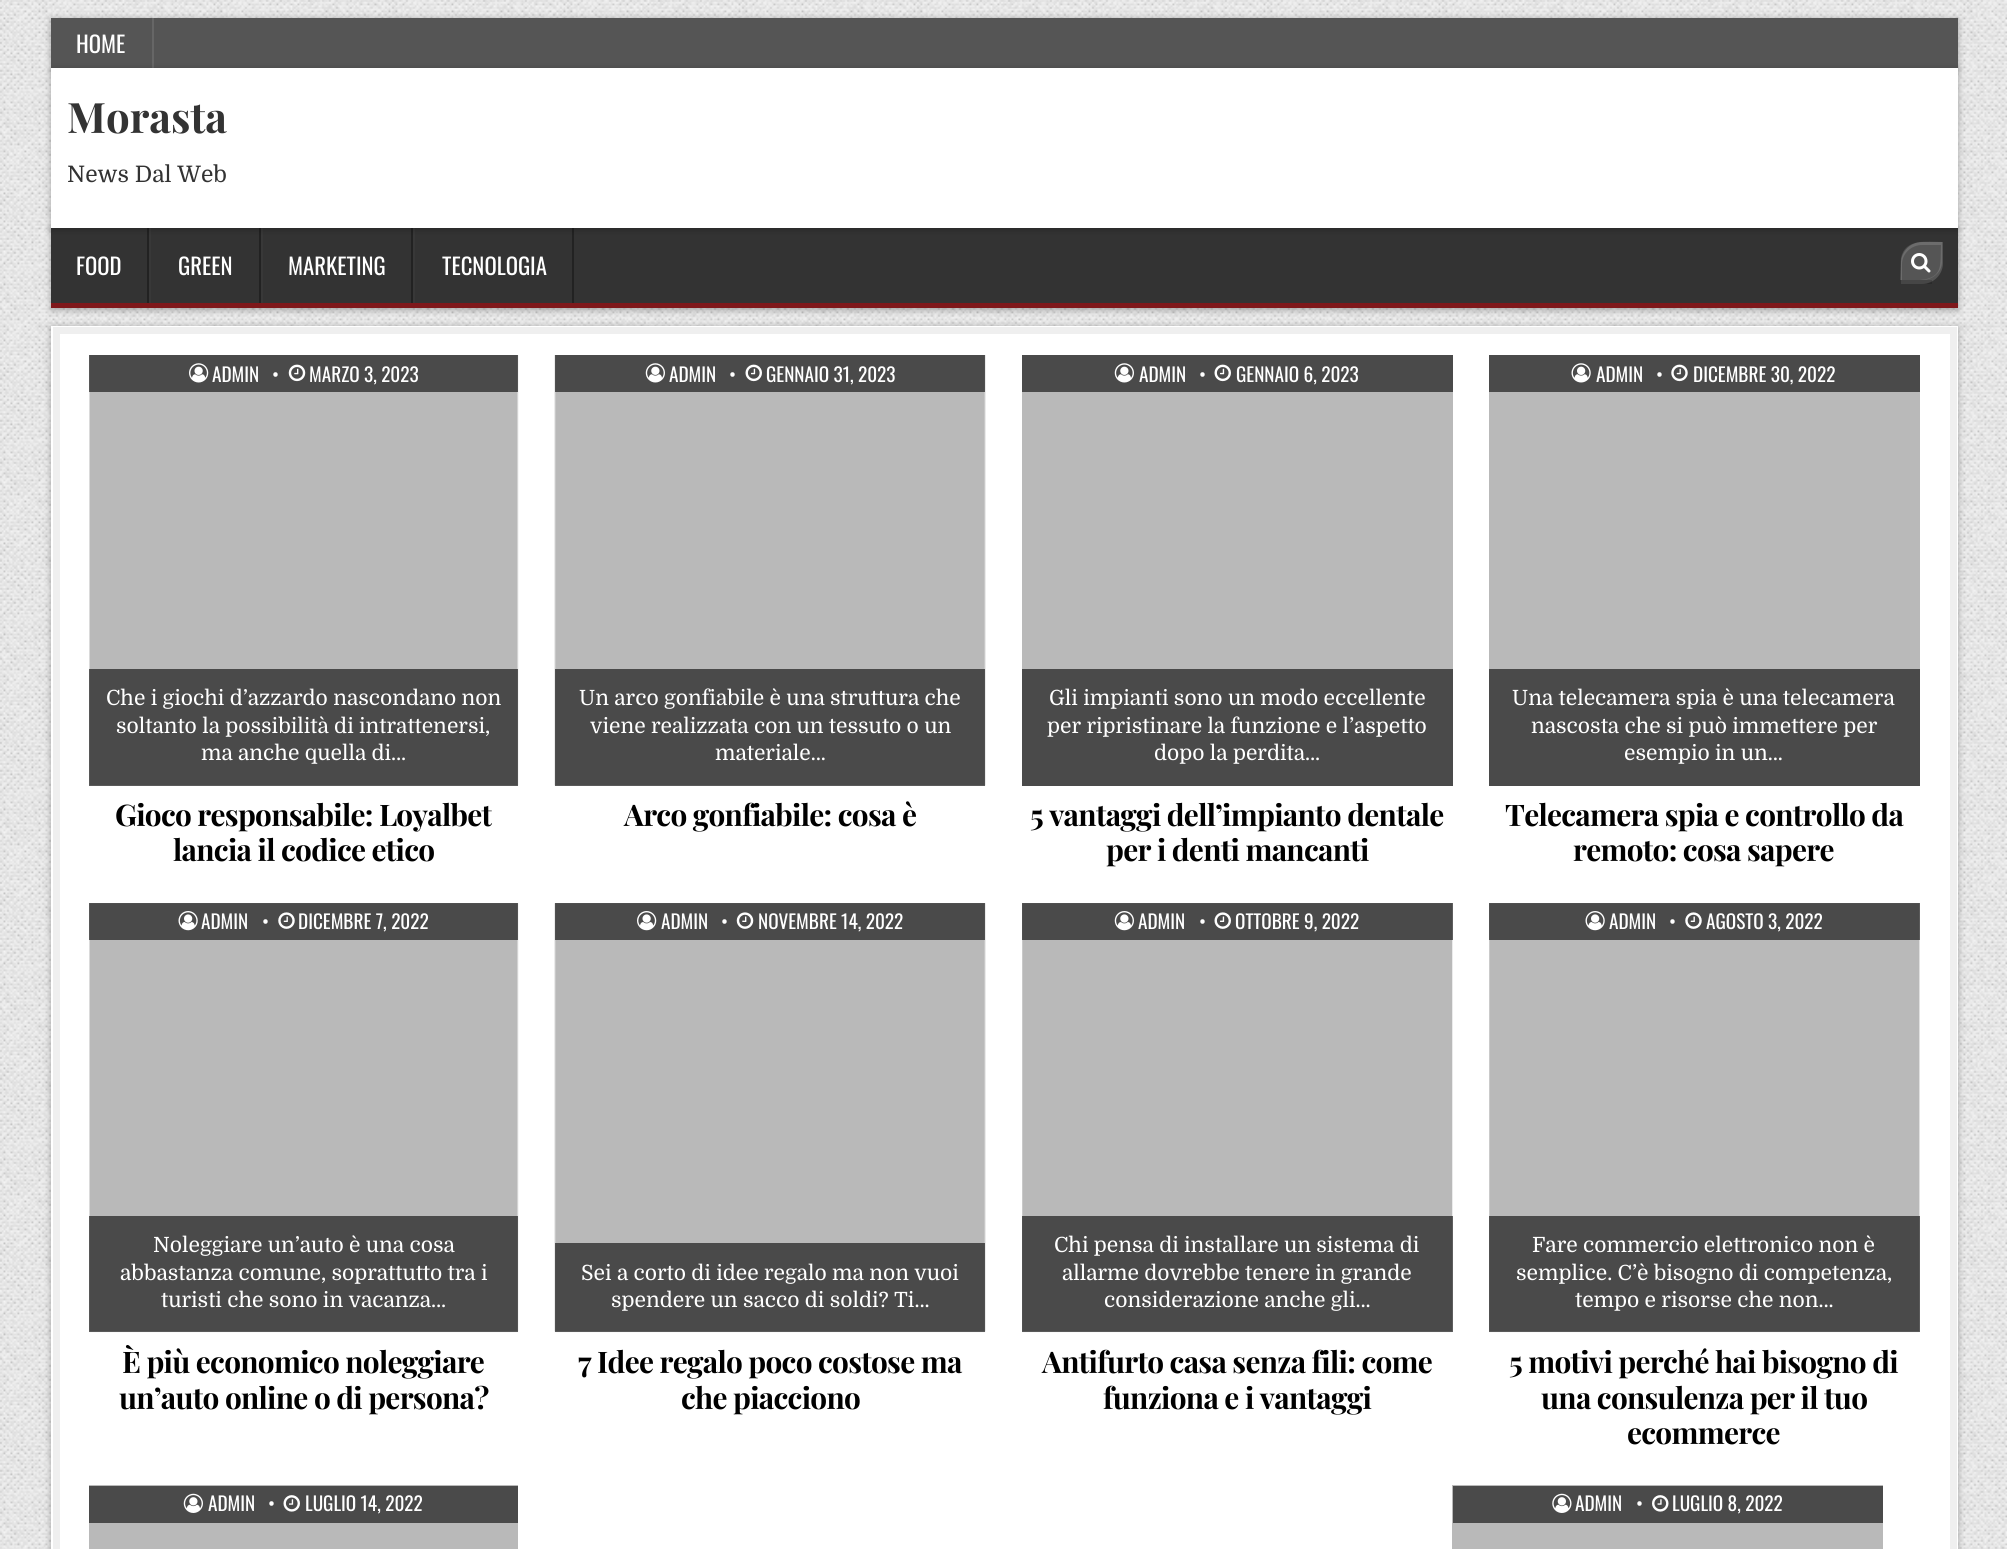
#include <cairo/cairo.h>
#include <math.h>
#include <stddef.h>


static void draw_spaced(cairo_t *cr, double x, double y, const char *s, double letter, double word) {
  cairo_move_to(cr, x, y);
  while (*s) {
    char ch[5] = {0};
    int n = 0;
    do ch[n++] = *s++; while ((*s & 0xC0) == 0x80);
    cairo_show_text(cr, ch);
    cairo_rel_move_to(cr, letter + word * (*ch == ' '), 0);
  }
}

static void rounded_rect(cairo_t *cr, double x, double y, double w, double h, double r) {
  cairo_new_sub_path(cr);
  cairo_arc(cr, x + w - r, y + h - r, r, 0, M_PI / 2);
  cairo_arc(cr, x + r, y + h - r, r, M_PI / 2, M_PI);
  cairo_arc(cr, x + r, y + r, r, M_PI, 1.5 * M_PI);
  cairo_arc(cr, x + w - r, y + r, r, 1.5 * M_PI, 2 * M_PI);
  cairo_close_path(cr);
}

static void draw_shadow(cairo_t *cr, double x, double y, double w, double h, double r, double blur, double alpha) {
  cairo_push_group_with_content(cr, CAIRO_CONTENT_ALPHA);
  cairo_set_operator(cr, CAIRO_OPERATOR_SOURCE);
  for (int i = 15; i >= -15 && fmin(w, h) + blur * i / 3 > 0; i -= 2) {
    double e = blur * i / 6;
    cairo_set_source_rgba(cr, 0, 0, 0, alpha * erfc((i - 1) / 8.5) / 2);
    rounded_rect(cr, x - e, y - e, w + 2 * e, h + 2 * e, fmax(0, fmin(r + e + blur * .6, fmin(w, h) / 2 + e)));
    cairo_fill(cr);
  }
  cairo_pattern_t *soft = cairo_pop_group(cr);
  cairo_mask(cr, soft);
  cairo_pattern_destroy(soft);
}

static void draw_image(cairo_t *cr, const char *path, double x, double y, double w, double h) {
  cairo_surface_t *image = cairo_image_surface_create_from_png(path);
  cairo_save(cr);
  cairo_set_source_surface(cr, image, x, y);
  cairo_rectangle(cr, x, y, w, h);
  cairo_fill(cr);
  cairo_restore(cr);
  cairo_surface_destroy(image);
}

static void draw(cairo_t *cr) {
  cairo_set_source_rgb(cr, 1, 1, 1);
  cairo_paint(cr);
  draw_image(cr, "images/1.png", 0, 0, 2007, 1549);
  cairo_set_source_rgb(cr, 0, 0, 0);
  draw_shadow(cr, 51, 19, 1907, 51, 0, 3.5, 0.3);
  cairo_set_source_rgb(cr, 85 / 255.0, 85 / 255.0, 85 / 255.0);
  cairo_rectangle(cr, 51, 18, 1907, 50);
  cairo_fill(cr);
  cairo_set_source_rgb(cr, 102 / 255.0, 102 / 255.0, 102 / 255.0);
  cairo_rectangle(cr, 152, 18, 2, 50);
  cairo_fill(cr);
  cairo_set_source_rgb(cr, 0, 0, 0);
  draw_shadow(cr, 51, 229, 1907, 81, 0, 3.5, 0.3);
  cairo_set_source_rgb(cr, 51 / 255.0, 51 / 255.0, 51 / 255.0);
  cairo_rectangle(cr, 51, 228, 1907, 75);
  cairo_fill(cr);
  cairo_set_source_rgb(cr, 34 / 255.0, 34 / 255.0, 34 / 255.0);
  cairo_rectangle(cr, 147, 228, 2, 75);
  cairo_fill(cr);
  cairo_rectangle(cr, 259, 228, 2, 75);
  cairo_fill(cr);
  cairo_set_source_rgb(cr, 56 / 255.0, 56 / 255.0, 56 / 255.0);
  cairo_rectangle(cr, 149, 228, 2, 75);
  cairo_fill(cr);
  cairo_set_source_rgb(cr, 34 / 255.0, 34 / 255.0, 34 / 255.0);
  cairo_rectangle(cr, 411, 228, 2, 75);
  cairo_fill(cr);
  cairo_set_source_rgb(cr, 56 / 255.0, 56 / 255.0, 56 / 255.0);
  cairo_rectangle(cr, 261, 228, 2, 75);
  cairo_fill(cr);
  cairo_set_source_rgb(cr, 34 / 255.0, 34 / 255.0, 34 / 255.0);
  cairo_rectangle(cr, 572, 228, 2, 75);
  cairo_fill(cr);
  cairo_set_source_rgb(cr, 56 / 255.0, 56 / 255.0, 56 / 255.0);
  cairo_rectangle(cr, 413, 228, 2, 75);
  cairo_fill(cr);
  cairo_set_source_rgb(cr, 0, 0, 0);
  draw_shadow(cr, 51, 70, 1907, 159, 0, 3.5, 0.3);
  cairo_set_source_rgb(cr, 1, 1, 1);
  cairo_rectangle(cr, 51, 68, 1907, 160);
  cairo_fill(cr);
  cairo_set_source_rgb(cr, 127 / 255.0, 24 / 255.0, 27 / 255.0);
  cairo_rectangle(cr, 51, 303, 1907, 5);
  cairo_fill(cr);
  cairo_set_source_rgb(cr, 85 / 255.0, 85 / 255.0, 85 / 255.0);
  cairo_new_path(cr);
  cairo_move_to(cr, 1922, 242);
  cairo_line_to(cr, 1943, 242);
  cairo_line_to(cr, 1943, 263);
  cairo_curve_to(cr, 1943, 274.5, 1933.5, 284, 1922, 284);
  cairo_line_to(cr, 1901, 284);
  cairo_line_to(cr, 1901, 263);
  cairo_curve_to(cr, 1901, 251.5, 1910.5, 242, 1922, 242);
  cairo_close_path(cr);
  cairo_fill(cr);
  cairo_set_source_rgba(cr, 1, 1, 1, 0.14);
  cairo_new_path(cr);
  cairo_move_to(cr, 1922, 245);
  cairo_line_to(cr, 1941, 245);
  cairo_curve_to(cr, 1940, 264, 1944, 278, 1920, 280);
  cairo_line_to(cr, 1922, 280);
  cairo_curve_to(cr, 1933, 280, 1942, 272, 1942, 262);
  cairo_line_to(cr, 1942, 242);
  cairo_curve_to(cr, 1927, 242, 1905, 238, 1901, 258);
  cairo_line_to(cr, 1900, 280);
  cairo_line_to(cr, 1902, 280);
  cairo_line_to(cr, 1902, 264);
  cairo_curve_to(cr, 1902, 254, 1911, 245, 1922, 245);
  cairo_close_path(cr);
  cairo_fill(cr);
  cairo_set_source_rgba(cr, 0, 0, 0, 0.18);
  cairo_rectangle(cr, 1901, 280, 31, 4);
  cairo_fill(cr);
  draw_image(cr, "images/2.png", 1911, 253, 20, 20);
  cairo_set_source_rgb(cr, 0, 0, 0);
  draw_shadow(cr, 51, 327, 1907, 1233, 0, 3.5, 0.3);
  cairo_set_source_rgb(cr, 1, 1, 1);
  cairo_rectangle(cr, 51, 326, 1907, 1223);
  cairo_fill(cr);
  cairo_rectangle(cr, 56.5, 330.5, 1897, 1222);
  cairo_set_source_rgb(cr, 239 / 255.0, 239 / 255.0, 239 / 255.0);
  cairo_set_line_width(cr, 7);
  cairo_stroke(cr);
  draw_image(cr, "images/3.png", 89, 355, 430, 431);
  cairo_set_source_rgba(cr, 0, 0, 0, 0.6);
  cairo_rectangle(cr, 89, 355, 429, 37);
  cairo_fill(cr);
  draw_image(cr, "images/4.png", 189, 363, 20, 20);
  draw_image(cr, "images/5.png", 288, 364, 18, 18);
  cairo_rectangle(cr, 89, 669, 429, 117);
  cairo_fill(cr);
  draw_image(cr, "images/6.png", 554, 355, 432, 431);
  cairo_rectangle(cr, 555, 355, 430, 37);
  cairo_fill(cr);
  draw_image(cr, "images/7.png", 645, 363, 20, 20);
  draw_image(cr, "images/8.png", 745, 364, 17, 18);
  cairo_rectangle(cr, 555, 669, 430, 117);
  cairo_fill(cr);
  cairo_set_source_rgb(cr, 74 / 255.0, 74 / 255.0, 74 / 255.0);
  cairo_rectangle(cr, 1022, 355, 431, 37);
  cairo_fill(cr);
  draw_image(cr, "images/9.png", 1114, 363, 20, 20);
  draw_image(cr, "images/8.png", 1214, 364, 17, 18);
  cairo_set_source_rgb(cr, 185 / 255.0, 185 / 255.0, 185 / 255.0);
  cairo_rectangle(cr, 1022, 392, 431, 277);
  cairo_fill(cr);
  cairo_set_source_rgb(cr, 74 / 255.0, 74 / 255.0, 74 / 255.0);
  cairo_rectangle(cr, 1022, 669, 431, 117);
  cairo_fill(cr);
  cairo_rectangle(cr, 1489, 355, 431, 37);
  cairo_fill(cr);
  draw_image(cr, "images/10.png", 1571, 363, 20, 20);
  draw_image(cr, "images/11.png", 1671, 364, 17, 18);
  cairo_set_source_rgb(cr, 185 / 255.0, 185 / 255.0, 185 / 255.0);
  cairo_rectangle(cr, 1489, 392, 431, 277);
  cairo_fill(cr);
  cairo_set_source_rgb(cr, 74 / 255.0, 74 / 255.0, 74 / 255.0);
  cairo_rectangle(cr, 1489, 669, 431, 117);
  cairo_fill(cr);
  draw_image(cr, "images/12.png", 89, 903, 430, 430);
  cairo_set_source_rgba(cr, 0, 0, 0, 0.6);
  cairo_rectangle(cr, 89, 903, 429, 37);
  cairo_fill(cr);
  draw_image(cr, "images/13.png", 178, 911, 20, 20);
  draw_image(cr, "images/14.png", 278, 912, 17, 17);
  cairo_rectangle(cr, 89, 1216, 429, 116);
  cairo_fill(cr);
  draw_image(cr, "images/15.png", 554, 903, 432, 430);
  cairo_rectangle(cr, 555, 903, 430, 37);
  cairo_fill(cr);
  draw_image(cr, "images/16.png", 637, 911, 20, 20);
  draw_image(cr, "images/17.png", 736, 912, 18, 17);
  cairo_rectangle(cr, 555, 1243, 430, 89);
  cairo_fill(cr);
  draw_image(cr, "images/18.png", 1022, 903, 431, 430);
  cairo_rectangle(cr, 1022, 903, 431, 37);
  cairo_fill(cr);
  draw_image(cr, "images/19.png", 1114, 911, 20, 20);
  draw_image(cr, "images/20.png", 1214, 912, 17, 17);
  cairo_rectangle(cr, 1022, 1216, 431, 116);
  cairo_fill(cr);
  draw_image(cr, "images/21.png", 1489, 903, 431, 430);
  cairo_rectangle(cr, 1489, 903, 431, 37);
  cairo_fill(cr);
  draw_image(cr, "images/13.png", 1585, 911, 20, 20);
  draw_image(cr, "images/14.png", 1685, 912, 17, 17);
  cairo_rectangle(cr, 1489, 1216, 431, 116);
  cairo_fill(cr);
  cairo_set_source_rgb(cr, 185 / 255.0, 185 / 255.0, 185 / 255.0);
  cairo_rectangle(cr, 89, 1485, 429, 64);
  cairo_fill(cr);
  cairo_set_source_rgb(cr, 74 / 255.0, 74 / 255.0, 74 / 255.0);
  cairo_rectangle(cr, 89, 1486, 429, 37);
  cairo_fill(cr);
  draw_image(cr, "images/22.png", 183, 1493, 20, 20);
  draw_image(cr, "images/23.png", 283, 1495, 17, 17);
  cairo_set_source_rgb(cr, 185 / 255.0, 185 / 255.0, 185 / 255.0);
  cairo_rectangle(cr, 1452, 1485, 431, 64);
  cairo_fill(cr);
  cairo_set_source_rgb(cr, 74 / 255.0, 74 / 255.0, 74 / 255.0);
  cairo_rectangle(cr, 1453, 1486, 430, 37);
  cairo_fill(cr);
  draw_image(cr, "images/24.png", 1552, 1493, 20, 20);
  draw_image(cr, "images/25.png", 1652, 1495, 17, 17);
  cairo_select_font_face(cr, "Oswald", CAIRO_FONT_SLANT_NORMAL, CAIRO_FONT_WEIGHT_NORMAL);
  cairo_set_font_size(cr, 22.75);
  cairo_set_source_rgb(cr, 1, 1, 1);
  cairo_move_to(cr, 76, 53);
  cairo_show_text(cr, "HOME");
  cairo_select_font_face(cr, "Playfair Display", CAIRO_FONT_SLANT_NORMAL, CAIRO_FONT_WEIGHT_BOLD);
  cairo_set_font_size(cr, 42);
  cairo_set_source_rgb(cr, 51 / 255.0, 51 / 255.0, 51 / 255.0);
  cairo_move_to(cr, 67, 133);
  cairo_show_text(cr, "Morasta");
  cairo_select_font_face(cr, "Domine", CAIRO_FONT_SLANT_NORMAL, CAIRO_FONT_WEIGHT_NORMAL);
  cairo_set_font_size(cr, 22.75);
  cairo_move_to(cr, 67, 182);
  cairo_show_text(cr, "News Dal Web");
  cairo_select_font_face(cr, "Oswald", CAIRO_FONT_SLANT_NORMAL, CAIRO_FONT_WEIGHT_NORMAL);
  cairo_set_source_rgb(cr, 1, 1, 1);
  cairo_move_to(cr, 76, 275);
  cairo_show_text(cr, "FOOD");
  cairo_move_to(cr, 178, 275);
  cairo_show_text(cr, "GREEN");
  cairo_move_to(cr, 288, 275);
  cairo_show_text(cr, "MARKETING");
  cairo_move_to(cr, 442, 275);
  cairo_show_text(cr, "TECNOLOGIA");
  cairo_set_font_size(cr, 19.25);
  cairo_move_to(cr, 212, 382);
  cairo_show_text(cr, "ADMIN");
  cairo_move_to(cr, 272, 382);
  cairo_show_text(cr, "•");
  cairo_move_to(cr, 309, 382);
  cairo_show_text(cr, "MARZO 3, 2023");
  cairo_select_font_face(cr, "Domine", CAIRO_FONT_SLANT_NORMAL, CAIRO_FONT_WEIGHT_NORMAL);
  cairo_set_font_size(cr, 21);
  cairo_move_to(cr, 106, 705);
  cairo_show_text(cr, "Che i giochi d’azzardo nascondano non");
  cairo_move_to(cr, 116, 733);
  cairo_show_text(cr, "soltanto la possibilità di intrattenersi,");
  cairo_move_to(cr, 201, 760);
  cairo_show_text(cr, "ma anche quella di…");
  cairo_select_font_face(cr, "Playfair Display", CAIRO_FONT_SLANT_NORMAL, CAIRO_FONT_WEIGHT_BOLD);
  cairo_set_font_size(cr, 29.75);
  cairo_set_source_rgb(cr, 0, 0, 0);
  draw_spaced(cr, 115, 826, "Gioco responsabile: Loyalbet", -0.7, 0);
  draw_spaced(cr, 173, 861, "lancia il codice etico", -0.7, 0);
  cairo_select_font_face(cr, "Oswald", CAIRO_FONT_SLANT_NORMAL, CAIRO_FONT_WEIGHT_NORMAL);
  cairo_set_font_size(cr, 19.25);
  cairo_set_source_rgb(cr, 1, 1, 1);
  cairo_move_to(cr, 669, 382);
  cairo_show_text(cr, "ADMIN");
  cairo_move_to(cr, 729, 382);
  cairo_show_text(cr, "•");
  cairo_move_to(cr, 766, 382);
  cairo_show_text(cr, "GENNAIO 31, 2023");
  cairo_select_font_face(cr, "Domine", CAIRO_FONT_SLANT_NORMAL, CAIRO_FONT_WEIGHT_NORMAL);
  cairo_set_font_size(cr, 21);
  cairo_move_to(cr, 579, 705);
  cairo_show_text(cr, "Un arco gonfiabile è una struttura che");
  cairo_move_to(cr, 590, 733);
  cairo_show_text(cr, "viene realizzata con un tessuto o un");
  cairo_move_to(cr, 715, 760);
  cairo_show_text(cr, "materiale…");
  cairo_select_font_face(cr, "Playfair Display", CAIRO_FONT_SLANT_NORMAL, CAIRO_FONT_WEIGHT_BOLD);
  cairo_set_font_size(cr, 29.75);
  cairo_set_source_rgb(cr, 0, 0, 0);
  draw_spaced(cr, 624, 826, "Arco gonfiabile: cosa è", -0.7, 0);
  cairo_select_font_face(cr, "Oswald", CAIRO_FONT_SLANT_NORMAL, CAIRO_FONT_WEIGHT_NORMAL);
  cairo_set_font_size(cr, 19.25);
  cairo_set_source_rgb(cr, 1, 1, 1);
  cairo_move_to(cr, 1139, 382);
  cairo_show_text(cr, "ADMIN");
  cairo_move_to(cr, 1199, 382);
  cairo_show_text(cr, "•");
  cairo_move_to(cr, 1236, 382);
  cairo_show_text(cr, "GENNAIO 6, 2023");
  cairo_select_font_face(cr, "Domine", CAIRO_FONT_SLANT_NORMAL, CAIRO_FONT_WEIGHT_NORMAL);
  cairo_set_font_size(cr, 21);
  cairo_move_to(cr, 1049, 705);
  cairo_show_text(cr, "Gli impianti sono un modo eccellente");
  cairo_move_to(cr, 1047, 733);
  cairo_show_text(cr, "per ripristinare la funzione e l’aspetto");
  cairo_move_to(cr, 1154, 760);
  cairo_show_text(cr, "dopo la perdita…");
  cairo_select_font_face(cr, "Playfair Display", CAIRO_FONT_SLANT_NORMAL, CAIRO_FONT_WEIGHT_BOLD);
  cairo_set_font_size(cr, 29.75);
  cairo_set_source_rgb(cr, 0, 0, 0);
  draw_spaced(cr, 1030, 826, "5 vantaggi dell’impianto dentale", -0.7, 0);
  draw_spaced(cr, 1106, 861, "per i denti mancanti", -0.7, 0);
  cairo_select_font_face(cr, "Oswald", CAIRO_FONT_SLANT_NORMAL, CAIRO_FONT_WEIGHT_NORMAL);
  cairo_set_font_size(cr, 19.25);
  cairo_set_source_rgb(cr, 1, 1, 1);
  cairo_move_to(cr, 1596, 382);
  cairo_show_text(cr, "ADMIN");
  cairo_move_to(cr, 1656, 382);
  cairo_show_text(cr, "•");
  cairo_move_to(cr, 1693, 382);
  cairo_show_text(cr, "DICEMBRE 30, 2022");
  cairo_select_font_face(cr, "Domine", CAIRO_FONT_SLANT_NORMAL, CAIRO_FONT_WEIGHT_NORMAL);
  cairo_set_font_size(cr, 21);
  cairo_move_to(cr, 1512, 705);
  cairo_show_text(cr, "Una telecamera spia è una telecamera");
  cairo_move_to(cr, 1531, 733);
  cairo_show_text(cr, "nascosta che si può immettere per");
  cairo_move_to(cr, 1624, 760);
  cairo_show_text(cr, "esempio in un…");
  cairo_select_font_face(cr, "Playfair Display", CAIRO_FONT_SLANT_NORMAL, CAIRO_FONT_WEIGHT_BOLD);
  cairo_set_font_size(cr, 29.75);
  cairo_set_source_rgb(cr, 0, 0, 0);
  draw_spaced(cr, 1505, 826, "Telecamera spia e controllo da", -0.7, 0);
  draw_spaced(cr, 1573, 861, "remoto: cosa sapere", -0.7, 0);
  cairo_select_font_face(cr, "Oswald", CAIRO_FONT_SLANT_NORMAL, CAIRO_FONT_WEIGHT_NORMAL);
  cairo_set_font_size(cr, 19.25);
  cairo_set_source_rgb(cr, 1, 1, 1);
  cairo_move_to(cr, 201, 929);
  cairo_show_text(cr, "ADMIN");
  cairo_move_to(cr, 262, 929);
  cairo_show_text(cr, "•");
  cairo_move_to(cr, 298, 929);
  cairo_show_text(cr, "DICEMBRE 7, 2022");
  cairo_select_font_face(cr, "Domine", CAIRO_FONT_SLANT_NORMAL, CAIRO_FONT_WEIGHT_NORMAL);
  cairo_set_font_size(cr, 21);
  cairo_move_to(cr, 153, 1252);
  cairo_show_text(cr, "Noleggiare un’auto è una cosa");
  cairo_move_to(cr, 120, 1280);
  cairo_show_text(cr, "abbastanza comune, soprattutto tra i");
  cairo_move_to(cr, 161, 1307);
  cairo_show_text(cr, "turisti che sono in vacanza…");
  cairo_select_font_face(cr, "Playfair Display", CAIRO_FONT_SLANT_NORMAL, CAIRO_FONT_WEIGHT_BOLD);
  cairo_set_font_size(cr, 29.75);
  cairo_set_source_rgb(cr, 0, 0, 0);
  draw_spaced(cr, 122, 1373, "È più economico noleggiare", -0.7, 0);
  draw_spaced(cr, 119, 1409, "un’auto online o di persona?", -0.7, 0);
  cairo_select_font_face(cr, "Oswald", CAIRO_FONT_SLANT_NORMAL, CAIRO_FONT_WEIGHT_NORMAL);
  cairo_set_font_size(cr, 19.25);
  cairo_set_source_rgb(cr, 1, 1, 1);
  cairo_move_to(cr, 661, 929);
  cairo_show_text(cr, "ADMIN");
  cairo_move_to(cr, 721, 929);
  cairo_show_text(cr, "•");
  cairo_move_to(cr, 758, 929);
  cairo_show_text(cr, "NOVEMBRE 14, 2022");
  cairo_select_font_face(cr, "Domine", CAIRO_FONT_SLANT_NORMAL, CAIRO_FONT_WEIGHT_NORMAL);
  cairo_set_font_size(cr, 21);
  cairo_move_to(cr, 581, 1280);
  cairo_show_text(cr, "Sei a corto di idee regalo ma non vuoi");
  cairo_move_to(cr, 611, 1307);
  cairo_show_text(cr, "spendere un sacco di soldi? Ti…");
  cairo_select_font_face(cr, "Playfair Display", CAIRO_FONT_SLANT_NORMAL, CAIRO_FONT_WEIGHT_BOLD);
  cairo_set_font_size(cr, 29.75);
  cairo_set_source_rgb(cr, 0, 0, 0);
  draw_spaced(cr, 578, 1373, "7 Idee regalo poco costose ma", -0.7, 0);
  draw_spaced(cr, 681, 1409, "che piacciono", -0.7, 0);
  cairo_select_font_face(cr, "Oswald", CAIRO_FONT_SLANT_NORMAL, CAIRO_FONT_WEIGHT_NORMAL);
  cairo_set_font_size(cr, 19.25);
  cairo_set_source_rgb(cr, 1, 1, 1);
  cairo_move_to(cr, 1138, 929);
  cairo_show_text(cr, "ADMIN");
  cairo_move_to(cr, 1199, 929);
  cairo_show_text(cr, "•");
  cairo_move_to(cr, 1235, 929);
  cairo_show_text(cr, "OTTOBRE 9, 2022");
  cairo_select_font_face(cr, "Domine", CAIRO_FONT_SLANT_NORMAL, CAIRO_FONT_WEIGHT_NORMAL);
  cairo_set_font_size(cr, 21);
  cairo_move_to(cr, 1054, 1252);
  cairo_show_text(cr, "Chi pensa di installare un sistema di");
  cairo_move_to(cr, 1062, 1280);
  cairo_show_text(cr, "allarme dovrebbe tenere in grande");
  cairo_move_to(cr, 1104, 1307);
  cairo_show_text(cr, "considerazione anche gli…");
  cairo_select_font_face(cr, "Playfair Display", CAIRO_FONT_SLANT_NORMAL, CAIRO_FONT_WEIGHT_BOLD);
  cairo_set_font_size(cr, 29.75);
  cairo_set_source_rgb(cr, 0, 0, 0);
  draw_spaced(cr, 1042, 1373, "Antifurto casa senza fili: come", -0.7, 0);
  draw_spaced(cr, 1103, 1409, "funziona e i vantaggi", -0.7, 0);
  cairo_select_font_face(cr, "Oswald", CAIRO_FONT_SLANT_NORMAL, CAIRO_FONT_WEIGHT_NORMAL);
  cairo_set_font_size(cr, 19.25);
  cairo_set_source_rgb(cr, 1, 1, 1);
  cairo_move_to(cr, 1609, 929);
  cairo_show_text(cr, "ADMIN");
  cairo_move_to(cr, 1669, 929);
  cairo_show_text(cr, "•");
  cairo_move_to(cr, 1706, 929);
  cairo_show_text(cr, "AGOSTO 3, 2022");
  cairo_select_font_face(cr, "Domine", CAIRO_FONT_SLANT_NORMAL, CAIRO_FONT_WEIGHT_NORMAL);
  cairo_set_font_size(cr, 21);
  cairo_move_to(cr, 1532, 1252);
  cairo_show_text(cr, "Fare commercio elettronico non è");
  cairo_move_to(cr, 1516, 1280);
  cairo_show_text(cr, "semplice. C’è bisogno di competenza,");
  cairo_move_to(cr, 1575, 1307);
  cairo_show_text(cr, "tempo e risorse che non…");
  cairo_select_font_face(cr, "Playfair Display", CAIRO_FONT_SLANT_NORMAL, CAIRO_FONT_WEIGHT_BOLD);
  cairo_set_font_size(cr, 29.75);
  cairo_set_source_rgb(cr, 0, 0, 0);
  draw_spaced(cr, 1509, 1373, "5 motivi perché hai bisogno di", -0.7, 0);
  draw_spaced(cr, 1541, 1409, "una consulenza per il tuo", -0.7, 0);
  draw_spaced(cr, 1627, 1444, "ecommerce", -0.7, 0);
  cairo_select_font_face(cr, "Oswald", CAIRO_FONT_SLANT_NORMAL, CAIRO_FONT_WEIGHT_NORMAL);
  cairo_set_font_size(cr, 19.25);
  cairo_set_source_rgb(cr, 1, 1, 1);
  cairo_move_to(cr, 208, 1511);
  cairo_show_text(cr, "ADMIN");
  cairo_move_to(cr, 268, 1511);
  cairo_show_text(cr, "•");
  cairo_move_to(cr, 305, 1511);
  cairo_show_text(cr, "LUGLIO 14, 2022");
  cairo_move_to(cr, 1575, 1511);
  cairo_show_text(cr, "ADMIN");
  cairo_move_to(cr, 1636, 1511);
  cairo_show_text(cr, "•");
  cairo_move_to(cr, 1672, 1511);
  cairo_show_text(cr, "LUGLIO 8, 2022");
}

int main(void) {
  cairo_surface_t *surface = cairo_image_surface_create(CAIRO_FORMAT_RGB24, 2007, 1549);
  cairo_t *cr = cairo_create(surface);
  cairo_font_options_t *options = cairo_font_options_create();
  cairo_font_options_set_hint_metrics(options, CAIRO_HINT_METRICS_OFF);
  cairo_font_options_set_hint_style(options, CAIRO_HINT_STYLE_NONE);
  cairo_set_font_options(cr, options);
  cairo_set_miter_limit(cr, 4);
  draw(cr);
  cairo_surface_write_to_png(surface, "out.png");
  cairo_font_options_destroy(options);
  cairo_destroy(cr);
  cairo_surface_destroy(surface);
  return 0;
}
